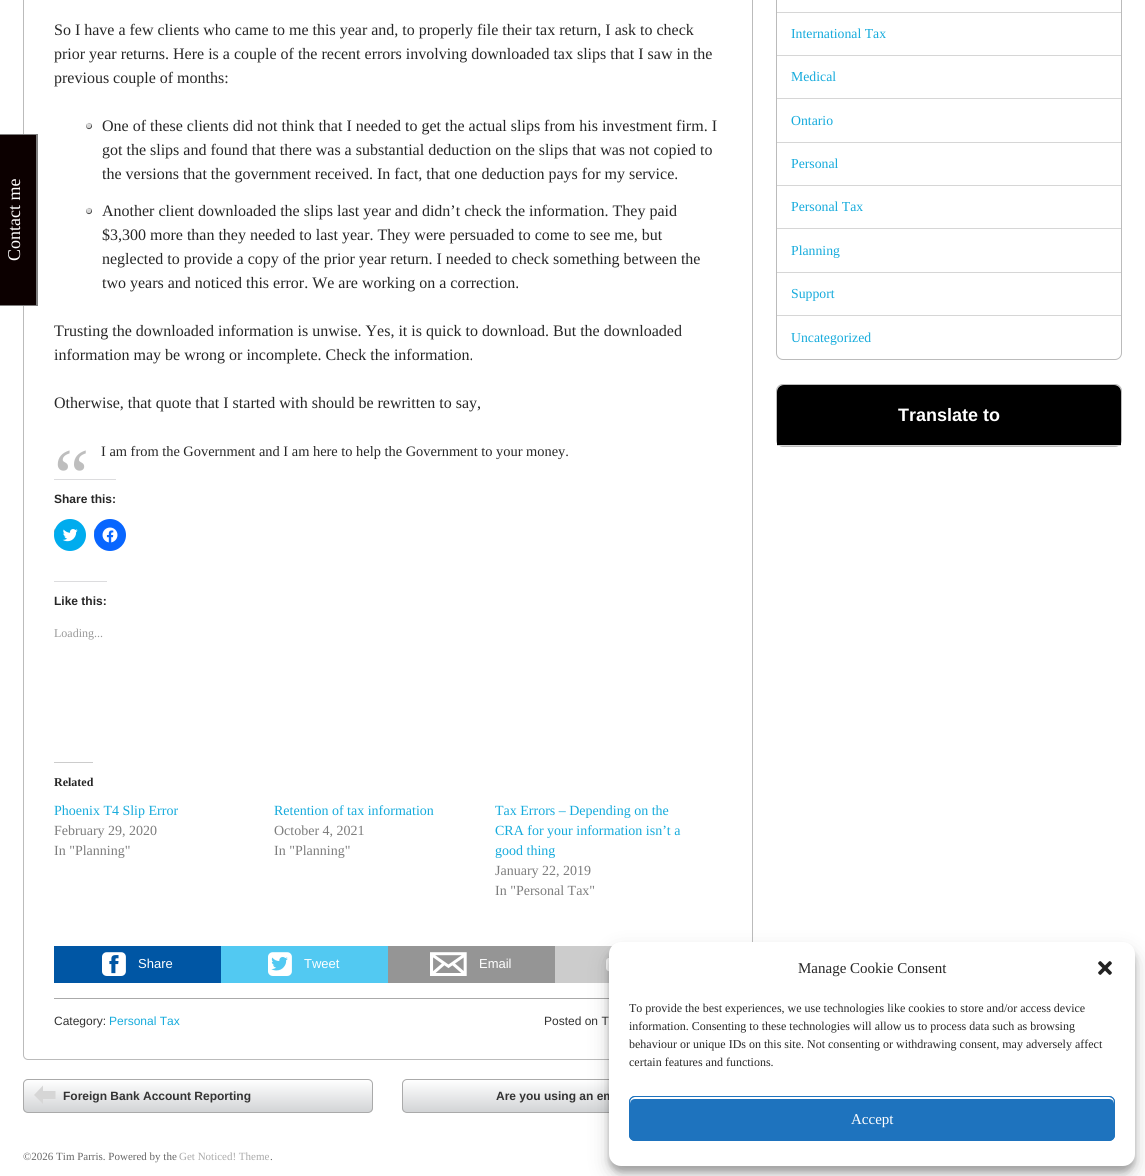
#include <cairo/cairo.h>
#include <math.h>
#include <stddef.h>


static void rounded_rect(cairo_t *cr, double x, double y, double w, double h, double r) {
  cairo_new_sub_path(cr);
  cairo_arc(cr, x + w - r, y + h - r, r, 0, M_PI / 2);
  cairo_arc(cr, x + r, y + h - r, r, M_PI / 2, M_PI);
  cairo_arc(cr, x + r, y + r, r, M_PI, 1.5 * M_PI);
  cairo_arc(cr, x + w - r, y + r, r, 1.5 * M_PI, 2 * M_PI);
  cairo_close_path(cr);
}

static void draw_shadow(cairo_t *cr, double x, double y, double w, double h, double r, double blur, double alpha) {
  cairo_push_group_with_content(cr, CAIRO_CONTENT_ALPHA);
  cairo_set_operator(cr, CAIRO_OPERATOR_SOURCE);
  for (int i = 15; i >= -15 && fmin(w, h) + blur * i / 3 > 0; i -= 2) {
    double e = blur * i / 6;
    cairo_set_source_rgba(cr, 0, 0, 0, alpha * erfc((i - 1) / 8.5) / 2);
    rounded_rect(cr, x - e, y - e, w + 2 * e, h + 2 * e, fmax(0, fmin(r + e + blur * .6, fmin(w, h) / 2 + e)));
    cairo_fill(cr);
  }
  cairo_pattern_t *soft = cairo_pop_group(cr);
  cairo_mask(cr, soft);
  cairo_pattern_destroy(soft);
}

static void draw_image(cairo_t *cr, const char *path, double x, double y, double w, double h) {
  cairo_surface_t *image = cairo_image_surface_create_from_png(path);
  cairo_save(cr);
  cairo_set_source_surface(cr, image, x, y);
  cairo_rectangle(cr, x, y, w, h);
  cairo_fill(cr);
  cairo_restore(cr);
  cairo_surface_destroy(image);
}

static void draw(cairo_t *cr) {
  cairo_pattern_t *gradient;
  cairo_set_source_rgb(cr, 1, 1, 1);
  cairo_paint(cr);
  rounded_rect(cr, 23.5, -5.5, 729, 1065, 4.5);
  cairo_set_source_rgb(cr, 187 / 255.0, 187 / 255.0, 187 / 255.0);
  cairo_set_line_width(cr, 1);
  cairo_stroke(cr);
  cairo_set_source_rgb(cr, 12 / 255.0, 0, 0);
  cairo_rectangle(cr, 0, 135, 36, 170);
  cairo_fill(cr);
  cairo_set_source_rgb(cr, 127 / 255.0, 127 / 255.0, 127 / 255.0);
  cairo_rectangle(cr, 0, 134, 38, 1);
  cairo_fill(cr);
  cairo_rectangle(cr, 36, 134, 2, 172);
  cairo_fill(cr);
  cairo_rectangle(cr, 0, 305, 38, 1);
  cairo_fill(cr);
  draw_image(cr, "images/1.png", 86, 122, 6, 8);
  draw_image(cr, "images/1.png", 86, 207, 6, 8);
  cairo_set_source_rgb(cr, 220 / 255.0, 220 / 255.0, 222 / 255.0);
  cairo_rectangle(cr, 54, 479, 62, 1);
  cairo_fill(cr);
  draw_image(cr, "images/2.png", 54, 527, 3, 7);
  cairo_set_source_rgb(cr, 0, 172 / 255.0, 238 / 255.0);
  cairo_arc(cr, 70, 535, 16, 0, 2 * M_PI);
  cairo_fill(cr);
  draw_image(cr, "images/3.png", 62, 529, 16, 13);
  draw_image(cr, "images/2.png", 94, 527, 3, 7);
  cairo_set_source_rgb(cr, 8 / 255.0, 102 / 255.0, 1);
  cairo_arc(cr, 110, 535, 16, 0, 2 * M_PI);
  cairo_fill(cr);
  draw_image(cr, "images/4.png", 102, 527, 16, 16);
  cairo_set_source_rgb(cr, 220 / 255.0, 220 / 255.0, 222 / 255.0);
  cairo_rectangle(cr, 54, 581, 53, 1);
  cairo_fill(cr);
  cairo_set_source_rgb(cr, 204 / 255.0, 204 / 255.0, 204 / 255.0);
  cairo_rectangle(cr, 54, 762, 39, 1);
  cairo_fill(cr);
  cairo_set_source_rgb(cr, 0, 86 / 255.0, 164 / 255.0);
  cairo_rectangle(cr, 54, 946, 167, 37);
  cairo_fill(cr);
  draw_image(cr, "images/5.png", 102, 952, 24, 24);
  cairo_set_source_rgb(cr, 82 / 255.0, 201 / 255.0, 242 / 255.0);
  cairo_rectangle(cr, 221, 946, 167, 37);
  cairo_fill(cr);
  draw_image(cr, "images/6.png", 268, 952, 24, 24);
  cairo_set_source_rgb(cr, 149 / 255.0, 149 / 255.0, 149 / 255.0);
  cairo_rectangle(cr, 388, 946, 167, 37);
  cairo_fill(cr);
  draw_image(cr, "images/7.png", 430, 952, 37, 24);
  cairo_set_source_rgb(cr, 204 / 255.0, 204 / 255.0, 204 / 255.0);
  cairo_rectangle(cr, 555, 946, 58, 37);
  cairo_fill(cr);
  draw_image(cr, "images/8.png", 606, 958, 3, 14);
  cairo_set_source_rgb(cr, 170 / 255.0, 170 / 255.0, 170 / 255.0);
  cairo_rectangle(cr, 54, 998, 555, 1);
  cairo_fill(cr);
  cairo_save(cr);
  rounded_rect(cr, 23, 1079, 350, 34, 5);
  cairo_clip(cr);
  gradient = cairo_pattern_create_linear(198, 1080, 198, 1112);
  cairo_pattern_add_color_stop_rgba(gradient, 0, 1, 1, 1, 1);
  cairo_pattern_add_color_stop_rgba(gradient, 1, 210 / 255.0, 212 / 255.0, 214 / 255.0, 1);
  cairo_set_source(cr, gradient);
  cairo_pattern_destroy(gradient);
  cairo_rectangle(cr, 23, 1080, 350, 32);
  cairo_fill(cr);
  cairo_restore(cr);
  rounded_rect(cr, 23.5, 1079.5, 349, 33, 4.5);
  cairo_stroke(cr);
  cairo_set_source_rgb(cr, 214 / 255.0, 214 / 255.0, 214 / 255.0);
  cairo_new_path(cr);
  cairo_move_to(cr, 34, 1095);
  cairo_line_to(cr, 43, 1085.5);
  cairo_line_to(cr, 43, 1091);
  cairo_line_to(cr, 55.5, 1091);
  cairo_line_to(cr, 55.5, 1099);
  cairo_line_to(cr, 43, 1099);
  cairo_line_to(cr, 43, 1104);
  cairo_close_path(cr);
  cairo_fill(cr);
  cairo_save(cr);
  rounded_rect(cr, 402, 1079, 351, 34, 5);
  cairo_clip(cr);
  gradient = cairo_pattern_create_linear(578, 1080, 578, 1112);
  cairo_pattern_add_color_stop_rgba(gradient, 0, 1, 1, 1, 1);
  cairo_pattern_add_color_stop_rgba(gradient, 1, 210 / 255.0, 212 / 255.0, 214 / 255.0, 1);
  cairo_set_source(cr, gradient);
  cairo_pattern_destroy(gradient);
  cairo_rectangle(cr, 402, 1080, 207, 32);
  cairo_fill(cr);
  cairo_restore(cr);
  rounded_rect(cr, 402.5, 1079.5, 350, 33, 4.5);
  cairo_set_source_rgb(cr, 170 / 255.0, 170 / 255.0, 170 / 255.0);
  cairo_stroke(cr);
  rounded_rect(cr, 776.5, -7.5, 345, 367, 6.5);
  cairo_set_source_rgb(cr, 187 / 255.0, 187 / 255.0, 187 / 255.0);
  cairo_stroke(cr);
  cairo_set_source_rgb(cr, 214 / 255.0, 214 / 255.0, 214 / 255.0);
  cairo_rectangle(cr, 777, 12, 344, 1);
  cairo_fill(cr);
  cairo_rectangle(cr, 777, 55, 344, 1);
  cairo_fill(cr);
  cairo_rectangle(cr, 777, 98, 344, 1);
  cairo_fill(cr);
  cairo_rectangle(cr, 777, 142, 344, 1);
  cairo_fill(cr);
  cairo_rectangle(cr, 777, 185, 344, 1);
  cairo_fill(cr);
  cairo_rectangle(cr, 777, 228, 344, 1);
  cairo_fill(cr);
  cairo_rectangle(cr, 777, 272, 344, 1);
  cairo_fill(cr);
  cairo_rectangle(cr, 777, 315, 344, 1);
  cairo_fill(cr);
  rounded_rect(cr, 776.5, 384.5, 345, 62, 6.5);
  cairo_set_source_rgb(cr, 187 / 255.0, 187 / 255.0, 187 / 255.0);
  cairo_stroke(cr);
  cairo_set_source_rgb(cr, 0, 0, 0);
  cairo_new_path(cr);
  cairo_move_to(cr, 784, 385);
  cairo_line_to(cr, 1114, 385);
  cairo_curve_to(cr, 1118, 385, 1121, 388, 1121, 392);
  cairo_line_to(cr, 1121, 446);
  cairo_line_to(cr, 777, 446);
  cairo_line_to(cr, 777, 392);
  cairo_curve_to(cr, 777, 388, 780, 385, 784, 385);
  cairo_close_path(cr);
  cairo_fill(cr);
  cairo_set_source_rgb(cr, 214 / 255.0, 214 / 255.0, 214 / 255.0);
  cairo_rectangle(cr, 777, 445, 344, 1);
  cairo_fill(cr);
  cairo_set_source_rgb(cr, 0, 0, 0);
  draw_shadow(cr, 609, 948, 526, 224, 12, 3, 0.23);
  draw_shadow(cr, 609, 952, 526, 224, 12, 10, 0.19);
  cairo_select_font_face(cr, "Liberation Serif", CAIRO_FONT_SLANT_NORMAL, CAIRO_FONT_WEIGHT_NORMAL);
  cairo_set_font_size(cr, 18);
  cairo_set_source_rgb(cr, 1, 1, 1);
  cairo_save(cr);
  cairo_translate(cr, 20, 261);
  cairo_rotate(cr, -90 * M_PI / 180);
  cairo_move_to(cr, 0, 0);
  cairo_show_text(cr, "Contact me");
  cairo_restore(cr);
  cairo_set_font_size(cr, 16);
  cairo_set_source_rgb(cr, 39 / 255.0, 39 / 255.0, 39 / 255.0);
  cairo_move_to(cr, 54, 35);
  cairo_show_text(cr, "So I have a few clients who came to me this year and, to properly file their tax return, I ask to check");
  cairo_move_to(cr, 54, 59);
  cairo_show_text(cr, "prior year returns. Here is a couple of the recent errors involving downloaded tax slips that I saw in the");
  cairo_move_to(cr, 54, 83);
  cairo_show_text(cr, "previous couple of months:");
  cairo_move_to(cr, 102, 131);
  cairo_show_text(cr, "One of these clients did not think that I needed to get the actual slips from his investment firm. I");
  cairo_move_to(cr, 102, 155);
  cairo_show_text(cr, "got the slips and found that there was a substantial deduction on the slips that was not copied to");
  cairo_move_to(cr, 102, 179);
  cairo_show_text(cr, "the versions that the government received. In fact, that one deduction pays for my service.");
  cairo_move_to(cr, 102, 216);
  cairo_show_text(cr, "Another client downloaded the slips last year and didn’t check the information. They paid");
  cairo_move_to(cr, 102, 240);
  cairo_show_text(cr, "$3,300 more than they needed to last year. They were persuaded to come to see me, but");
  cairo_move_to(cr, 102, 264);
  cairo_show_text(cr, "neglected to provide a copy of the prior year return. I needed to check something between the");
  cairo_move_to(cr, 102, 288);
  cairo_show_text(cr, "two years and noticed this error. We are working on a correction.");
  cairo_move_to(cr, 54, 336);
  cairo_show_text(cr, "Trusting the downloaded information is unwise. Yes, it is quick to download. But the downloaded");
  cairo_move_to(cr, 54, 360);
  cairo_show_text(cr, "information may be wrong or incomplete. Check the information.");
  cairo_move_to(cr, 54, 408);
  cairo_show_text(cr, "Otherwise, that quote that I started with should be rewritten to say,");
  cairo_set_font_size(cr, 79);
  cairo_set_source_rgb(cr, 190 / 255.0, 190 / 255.0, 190 / 255.0);
  cairo_move_to(cr, 54, 503);
  cairo_show_text(cr, "“");
  cairo_set_font_size(cr, 14.4);
  cairo_set_source_rgb(cr, 39 / 255.0, 39 / 255.0, 39 / 255.0);
  cairo_move_to(cr, 101, 456);
  cairo_show_text(cr, "I am from the Government and I am here to help the Government to your money.");
  cairo_select_font_face(cr, "Liberation Sans", CAIRO_FONT_SLANT_NORMAL, CAIRO_FONT_WEIGHT_BOLD);
  cairo_set_font_size(cr, 12);
  cairo_move_to(cr, 54, 503);
  cairo_show_text(cr, "Share this:");
  cairo_move_to(cr, 54, 605);
  cairo_show_text(cr, "Like this:");
  cairo_select_font_face(cr, "Liberation Serif", CAIRO_FONT_SLANT_NORMAL, CAIRO_FONT_WEIGHT_NORMAL);
  cairo_set_source_rgb(cr, 153 / 255.0, 153 / 255.0, 153 / 255.0);
  cairo_move_to(cr, 54, 637);
  cairo_show_text(cr, "Loading...");
  cairo_select_font_face(cr, "Liberation Serif", CAIRO_FONT_SLANT_NORMAL, CAIRO_FONT_WEIGHT_BOLD);
  cairo_set_source_rgb(cr, 39 / 255.0, 39 / 255.0, 39 / 255.0);
  cairo_move_to(cr, 54, 786);
  cairo_show_text(cr, "Related");
  cairo_select_font_face(cr, "Liberation Serif", CAIRO_FONT_SLANT_NORMAL, CAIRO_FONT_WEIGHT_NORMAL);
  cairo_set_font_size(cr, 14);
  cairo_set_source_rgb(cr, 22 / 255.0, 171 / 255.0, 220 / 255.0);
  cairo_move_to(cr, 54, 815);
  cairo_show_text(cr, "Phoenix T4 Slip Error");
  cairo_set_source_rgb(cr, 125 / 255.0, 125 / 255.0, 125 / 255.0);
  cairo_move_to(cr, 54, 835);
  cairo_show_text(cr, "February 29, 2020");
  cairo_move_to(cr, 54, 855);
  cairo_show_text(cr, "In \"Planning\"");
  cairo_set_source_rgb(cr, 22 / 255.0, 171 / 255.0, 220 / 255.0);
  cairo_move_to(cr, 274, 815);
  cairo_show_text(cr, "Retention of tax information");
  cairo_set_source_rgb(cr, 125 / 255.0, 125 / 255.0, 125 / 255.0);
  cairo_move_to(cr, 274, 835);
  cairo_show_text(cr, "October 4, 2021");
  cairo_move_to(cr, 274, 855);
  cairo_show_text(cr, "In \"Planning\"");
  cairo_set_source_rgb(cr, 22 / 255.0, 171 / 255.0, 220 / 255.0);
  cairo_move_to(cr, 495, 815);
  cairo_show_text(cr, "Tax Errors – Depending on the");
  cairo_move_to(cr, 495, 835);
  cairo_show_text(cr, "CRA for your information isn’t a");
  cairo_move_to(cr, 495, 855);
  cairo_show_text(cr, "good thing");
  cairo_set_source_rgb(cr, 125 / 255.0, 125 / 255.0, 125 / 255.0);
  cairo_move_to(cr, 495, 875);
  cairo_show_text(cr, "January 22, 2019");
  cairo_move_to(cr, 495, 895);
  cairo_show_text(cr, "In \"Personal Tax\"");
  cairo_select_font_face(cr, "Liberation Sans", CAIRO_FONT_SLANT_NORMAL, CAIRO_FONT_WEIGHT_NORMAL);
  cairo_set_font_size(cr, 13);
  cairo_set_source_rgb(cr, 1, 1, 1);
  cairo_move_to(cr, 138, 968);
  cairo_show_text(cr, "Share");
  cairo_move_to(cr, 304, 968);
  cairo_show_text(cr, "Tweet");
  cairo_move_to(cr, 479, 968);
  cairo_show_text(cr, "Email");
  cairo_set_font_size(cr, 12);
  cairo_set_source_rgb(cr, 51 / 255.0, 51 / 255.0, 51 / 255.0);
  cairo_move_to(cr, 54, 1025);
  cairo_show_text(cr, "Category:");
  cairo_set_source_rgb(cr, 22 / 255.0, 171 / 255.0, 220 / 255.0);
  cairo_move_to(cr, 109, 1025);
  cairo_show_text(cr, "Personal Tax");
  cairo_set_source_rgb(cr, 51 / 255.0, 51 / 255.0, 51 / 255.0);
  cairo_move_to(cr, 544, 1025);
  cairo_show_text(cr, "Posted on T");
  cairo_select_font_face(cr, "Liberation Sans", CAIRO_FONT_SLANT_NORMAL, CAIRO_FONT_WEIGHT_BOLD);
  cairo_move_to(cr, 63, 1100);
  cairo_show_text(cr, "Foreign Bank Account Reporting");
  cairo_move_to(cr, 496, 1100);
  cairo_show_text(cr, "Are you using an em");
  cairo_select_font_face(cr, "Liberation Serif", CAIRO_FONT_SLANT_NORMAL, CAIRO_FONT_WEIGHT_NORMAL);
  cairo_set_font_size(cr, 13.75);
  cairo_set_source_rgb(cr, 22 / 255.0, 171 / 255.0, 220 / 255.0);
  cairo_move_to(cr, 791, 38);
  cairo_show_text(cr, "International Tax");
  cairo_move_to(cr, 791, 81);
  cairo_show_text(cr, "Medical");
  cairo_move_to(cr, 791, 125);
  cairo_show_text(cr, "Ontario");
  cairo_move_to(cr, 791, 168);
  cairo_show_text(cr, "Personal");
  cairo_move_to(cr, 791, 211);
  cairo_show_text(cr, "Personal Tax");
  cairo_move_to(cr, 791, 255);
  cairo_show_text(cr, "Planning");
  cairo_move_to(cr, 791, 298);
  cairo_show_text(cr, "Support");
  cairo_move_to(cr, 791, 342);
  cairo_show_text(cr, "Uncategorized");
  cairo_select_font_face(cr, "Liberation Sans", CAIRO_FONT_SLANT_NORMAL, CAIRO_FONT_WEIGHT_BOLD);
  cairo_set_font_size(cr, 18);
  cairo_set_source_rgb(cr, 1, 1, 1);
  cairo_move_to(cr, 898, 421);
  cairo_show_text(cr, "Translate to");
  cairo_select_font_face(cr, "Liberation Serif", CAIRO_FONT_SLANT_NORMAL, CAIRO_FONT_WEIGHT_NORMAL);
  cairo_set_font_size(cr, 11);
  cairo_set_source_rgb(cr, 102 / 255.0, 102 / 255.0, 102 / 255.0);
  cairo_move_to(cr, 23, 1160);
  cairo_show_text(cr, "©2026 Tim Parris. Powered by the");
  cairo_set_source_rgb(cr, 170 / 255.0, 170 / 255.0, 170 / 255.0);
  cairo_move_to(cr, 179, 1160);
  cairo_show_text(cr, "Get Noticed! Theme");
  cairo_set_source_rgb(cr, 102 / 255.0, 102 / 255.0, 102 / 255.0);
  cairo_move_to(cr, 270, 1160);
  cairo_show_text(cr, ".");
  cairo_set_source_rgb(cr, 1, 1, 1);
  rounded_rect(cr, 609, 942, 526, 224, 12);
  cairo_fill(cr);
  cairo_set_font_size(cr, 15);
  cairo_set_source_rgb(cr, 39 / 255.0, 39 / 255.0, 39 / 255.0);
  cairo_move_to(cr, 798, 973);
  cairo_show_text(cr, "Manage Cookie Consent");
  draw_image(cr, "images/9.png", 1098, 961, 14, 14);
  cairo_set_font_size(cr, 12);
  cairo_move_to(cr, 629, 1012);
  cairo_show_text(cr, "To provide the best experiences, we use technologies like cookies to store and/or access device");
  cairo_move_to(cr, 629, 1030);
  cairo_show_text(cr, "information. Consenting to these technologies will allow us to process data such as browsing");
  cairo_move_to(cr, 629, 1048);
  cairo_show_text(cr, "behaviour or unique IDs on this site. Not consenting or withdrawing consent, may adversely affect");
  cairo_move_to(cr, 629, 1066);
  cairo_show_text(cr, "certain features and functions.");
  cairo_set_source_rgb(cr, 30 / 255.0, 115 / 255.0, 190 / 255.0);
  rounded_rect(cr, 629, 1096, 486, 45, 6);
  cairo_fill(cr);
  cairo_set_source_rgb(cr, 1, 1, 1);
  cairo_new_path(cr);
  cairo_move_to(cr, 635, 1099);
  cairo_line_to(cr, 1109, 1099);
  cairo_curve_to(cr, 1112, 1099, 1114, 1101, 1114, 1104);
  cairo_line_to(cr, 1114, 1102);
  cairo_curve_to(cr, 1114, 1099, 1112, 1097, 1109, 1097);
  cairo_line_to(cr, 635, 1097);
  cairo_curve_to(cr, 632, 1097, 630, 1099, 630, 1102);
  cairo_line_to(cr, 630, 1104);
  cairo_curve_to(cr, 630, 1101, 632, 1099, 635, 1099);
  cairo_close_path(cr);
  cairo_fill(cr);
  rounded_rect(cr, 629.5, 1096.5, 485, 44, 5.5);
  cairo_set_source_rgb(cr, 30 / 255.0, 115 / 255.0, 190 / 255.0);
  cairo_stroke(cr);
  cairo_set_font_size(cr, 15);
  cairo_set_source_rgb(cr, 1, 1, 1);
  cairo_move_to(cr, 851, 1124);
  cairo_show_text(cr, "Accept");
}

int main(void) {
  cairo_surface_t *surface = cairo_image_surface_create(CAIRO_FORMAT_RGB24, 1145, 1176);
  cairo_t *cr = cairo_create(surface);
  cairo_font_options_t *options = cairo_font_options_create();
  cairo_font_options_set_hint_metrics(options, CAIRO_HINT_METRICS_OFF);
  cairo_font_options_set_hint_style(options, CAIRO_HINT_STYLE_NONE);
  cairo_set_font_options(cr, options);
  cairo_set_miter_limit(cr, 4);
  draw(cr);
  cairo_surface_write_to_png(surface, "out.png");
  cairo_font_options_destroy(options);
  cairo_destroy(cr);
  cairo_surface_destroy(surface);
  return 0;
}
